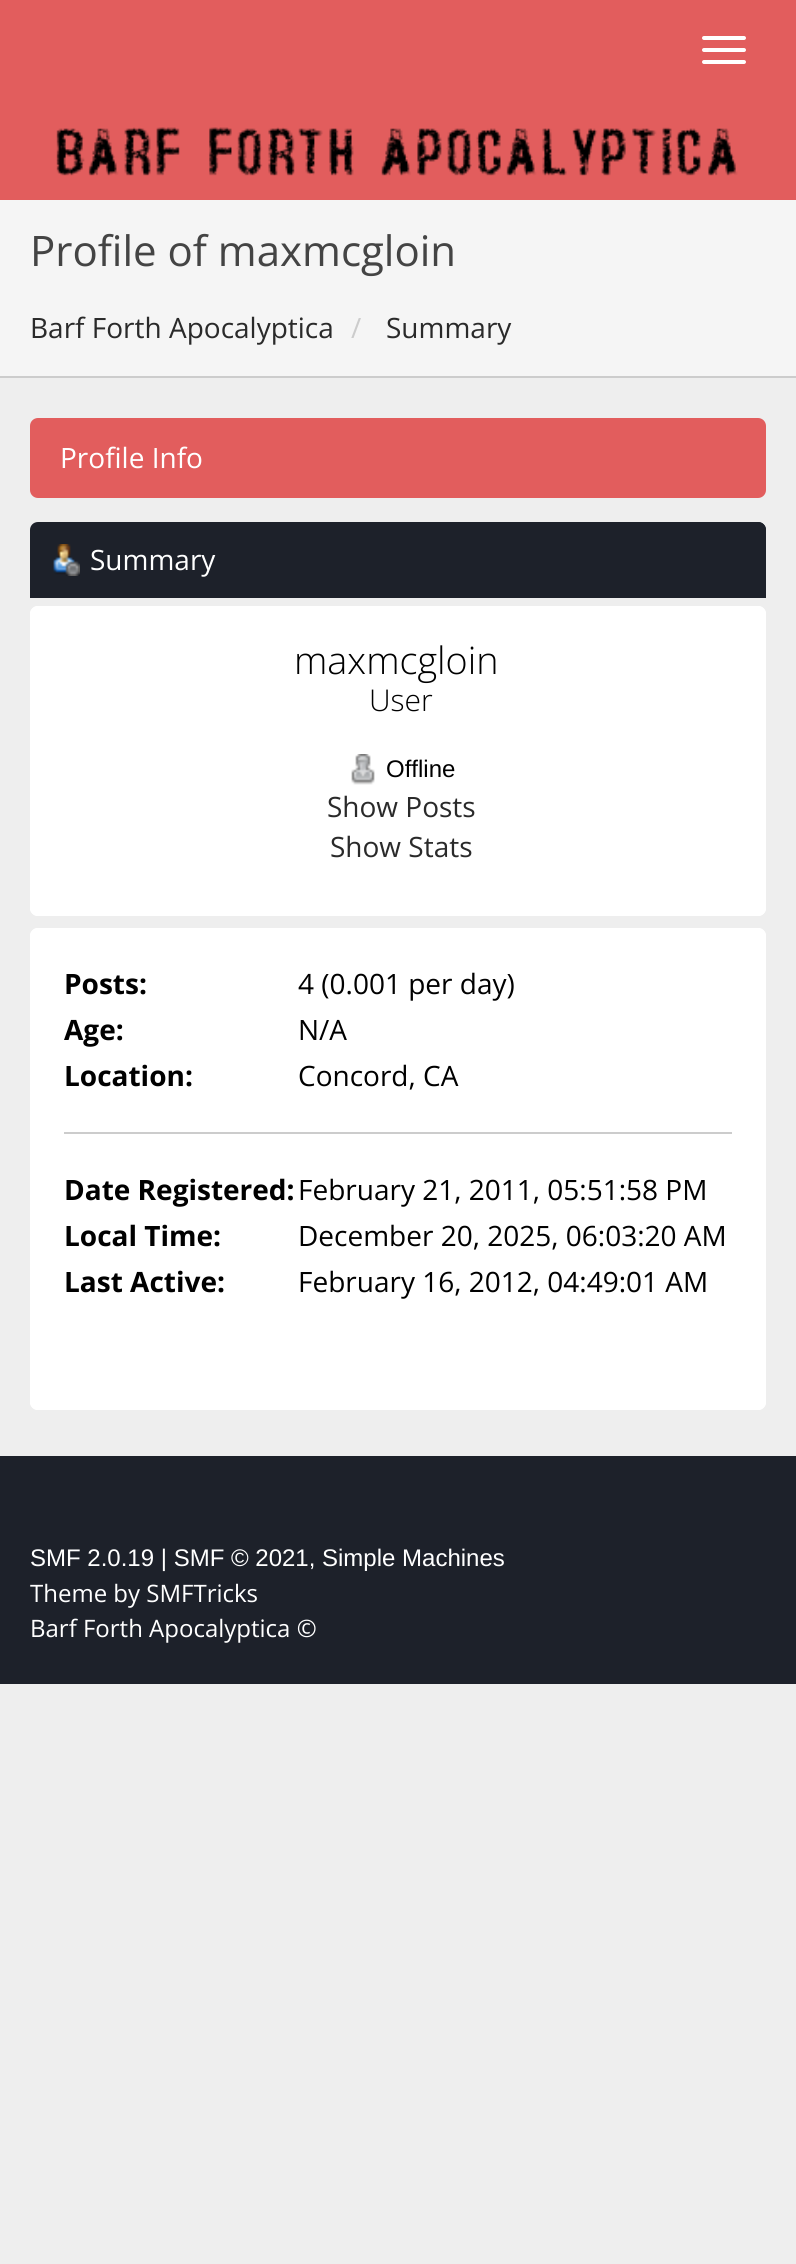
#include <cairo/cairo.h>
#include <math.h>
#include <stddef.h>


static void rounded_rect(cairo_t *cr, double x, double y, double w, double h, double r) {
  cairo_new_sub_path(cr);
  cairo_arc(cr, x + w - r, y + h - r, r, 0, M_PI / 2);
  cairo_arc(cr, x + r, y + h - r, r, M_PI / 2, M_PI);
  cairo_arc(cr, x + r, y + r, r, M_PI, 1.5 * M_PI);
  cairo_arc(cr, x + w - r, y + r, r, 1.5 * M_PI, 2 * M_PI);
  cairo_close_path(cr);
}

static void draw_image(cairo_t *cr, const char *path, double x, double y, double w, double h) {
  cairo_surface_t *image = cairo_image_surface_create_from_png(path);
  cairo_save(cr);
  cairo_set_source_surface(cr, image, x, y);
  cairo_rectangle(cr, x, y, w, h);
  cairo_fill(cr);
  cairo_restore(cr);
  cairo_surface_destroy(image);
}

static void draw(cairo_t *cr) {
  cairo_set_source_rgb(cr, 238 / 255.0, 238 / 255.0, 238 / 255.0);
  cairo_paint(cr);
  cairo_set_source_rgb(cr, 226 / 255.0, 93 / 255.0, 93 / 255.0);
  cairo_rectangle(cr, 0, 0, 796, 200);
  cairo_fill(cr);
  cairo_set_source_rgb(cr, 1, 1, 1);
  rounded_rect(cr, 702, 36, 44, 4, 2);
  cairo_fill(cr);
  rounded_rect(cr, 702, 48, 44, 4, 2);
  cairo_fill(cr);
  rounded_rect(cr, 702, 60, 44, 4, 2);
  cairo_fill(cr);
  draw_image(cr, "images/1.png", 56, 127, 682, 49);
  cairo_set_source_rgb(cr, 245 / 255.0, 245 / 255.0, 245 / 255.0);
  cairo_rectangle(cr, 0, 200, 796, 176);
  cairo_fill(cr);
  cairo_set_source_rgb(cr, 204 / 255.0, 204 / 255.0, 204 / 255.0);
  cairo_rectangle(cr, 0, 376, 796, 2);
  cairo_fill(cr);
  cairo_set_source_rgb(cr, 226 / 255.0, 93 / 255.0, 93 / 255.0);
  rounded_rect(cr, 30, 418, 736, 80, 8);
  cairo_fill(cr);
  cairo_set_source_rgb(cr, 29 / 255.0, 33 / 255.0, 42 / 255.0);
  cairo_new_path(cr);
  cairo_move_to(cr, 38, 522);
  cairo_line_to(cr, 758, 522);
  cairo_curve_to(cr, 762.5, 522, 766, 525.5, 766, 530);
  cairo_line_to(cr, 766, 598);
  cairo_line_to(cr, 30, 598);
  cairo_line_to(cr, 30, 530);
  cairo_curve_to(cr, 30, 525.5, 33.5, 522, 38, 522);
  cairo_close_path(cr);
  cairo_fill(cr);
  cairo_new_path(cr);
  cairo_move_to(cr, 48, 522);
  cairo_line_to(cr, 758, 522);
  cairo_curve_to(cr, 762.5, 522, 766, 525.5, 766, 530);
  cairo_line_to(cr, 766, 598);
  cairo_line_to(cr, 48, 598);
  cairo_close_path(cr);
  cairo_fill(cr);
  draw_image(cr, "images/2.png", 53, 544, 27, 32);
  cairo_set_source_rgb(cr, 1, 1, 1);
  rounded_rect(cr, 30, 606, 736, 310, 8);
  cairo_fill(cr);
  cairo_new_path(cr);
  cairo_move_to(cr, 38, 606);
  cairo_line_to(cr, 758, 606);
  cairo_curve_to(cr, 762.5, 606, 766, 609.5, 766, 614);
  cairo_line_to(cr, 766, 628);
  cairo_line_to(cr, 30, 628);
  cairo_line_to(cr, 30, 614);
  cairo_curve_to(cr, 30, 609.5, 33.5, 606, 38, 606);
  cairo_close_path(cr);
  cairo_fill(cr);
  draw_image(cr, "images/3.png", 351, 754, 24, 31);
  cairo_new_path(cr);
  cairo_move_to(cr, 30, 894);
  cairo_line_to(cr, 766, 894);
  cairo_line_to(cr, 766, 908);
  cairo_curve_to(cr, 766, 912.5, 762.5, 916, 758, 916);
  cairo_line_to(cr, 38, 916);
  cairo_curve_to(cr, 33.5, 916, 30, 912.5, 30, 908);
  cairo_close_path(cr);
  cairo_fill(cr);
  rounded_rect(cr, 30, 928, 736, 482, 8);
  cairo_fill(cr);
  cairo_new_path(cr);
  cairo_move_to(cr, 38, 928);
  cairo_line_to(cr, 758, 928);
  cairo_curve_to(cr, 762.5, 928, 766, 931.5, 766, 936);
  cairo_line_to(cr, 766, 950);
  cairo_line_to(cr, 30, 950);
  cairo_line_to(cr, 30, 936);
  cairo_curve_to(cr, 30, 931.5, 33.5, 928, 38, 928);
  cairo_close_path(cr);
  cairo_fill(cr);
  cairo_set_source_rgb(cr, 204 / 255.0, 204 / 255.0, 204 / 255.0);
  cairo_rectangle(cr, 64, 1132, 668, 2);
  cairo_fill(cr);
  cairo_set_source_rgb(cr, 1, 1, 1);
  cairo_new_path(cr);
  cairo_move_to(cr, 30, 1388);
  cairo_line_to(cr, 766, 1388);
  cairo_line_to(cr, 766, 1402);
  cairo_curve_to(cr, 766, 1406.5, 762.5, 1410, 758, 1410);
  cairo_line_to(cr, 38, 1410);
  cairo_curve_to(cr, 33.5, 1410, 30, 1406.5, 30, 1402);
  cairo_close_path(cr);
  cairo_fill(cr);
  cairo_set_source_rgb(cr, 29 / 255.0, 33 / 255.0, 42 / 255.0);
  cairo_rectangle(cr, 0, 1456, 796, 228);
  cairo_fill(cr);
  cairo_select_font_face(cr, "Open Sans", CAIRO_FONT_SLANT_NORMAL, CAIRO_FONT_WEIGHT_NORMAL);
  cairo_set_font_size(cr, 42);
  cairo_set_source_rgb(cr, 68 / 255.0, 68 / 255.0, 68 / 255.0);
  cairo_move_to(cr, 30, 266);
  cairo_show_text(cr, "Profile of maxmcgloin");
  cairo_set_font_size(cr, 28);
  cairo_set_source_rgb(cr, 42 / 255.0, 42 / 255.0, 42 / 255.0);
  cairo_move_to(cr, 30, 338);
  cairo_show_text(cr, "Barf Forth Apocalyptica");
  cairo_set_source_rgb(cr, 204 / 255.0, 204 / 255.0, 204 / 255.0);
  cairo_move_to(cr, 351, 338);
  cairo_show_text(cr, "/");
  cairo_set_source_rgb(cr, 42 / 255.0, 42 / 255.0, 42 / 255.0);
  cairo_move_to(cr, 386, 338);
  cairo_show_text(cr, "Summary");
  cairo_set_source_rgb(cr, 1, 1, 1);
  cairo_move_to(cr, 60, 468);
  cairo_show_text(cr, "Profile Info");
  cairo_move_to(cr, 90, 570);
  cairo_show_text(cr, "Summary");
  cairo_select_font_face(cr, "Open Sans Light", CAIRO_FONT_SLANT_NORMAL, CAIRO_FONT_WEIGHT_NORMAL);
  cairo_set_font_size(cr, 37.75);
  cairo_set_source_rgb(cr, 0, 0, 0);
  cairo_move_to(cr, 294, 674);
  cairo_show_text(cr, "maxmcgloin");
  cairo_set_font_size(cr, 30);
  cairo_move_to(cr, 369, 711);
  cairo_show_text(cr, "User");
  cairo_select_font_face(cr, "Liberation Sans", CAIRO_FONT_SLANT_NORMAL, CAIRO_FONT_WEIGHT_NORMAL);
  cairo_set_font_size(cr, 24);
  cairo_move_to(cr, 386, 777);
  cairo_show_text(cr, "Offline");
  cairo_select_font_face(cr, "Open Sans", CAIRO_FONT_SLANT_NORMAL, CAIRO_FONT_WEIGHT_NORMAL);
  cairo_set_font_size(cr, 28);
  cairo_set_source_rgb(cr, 42 / 255.0, 42 / 255.0, 42 / 255.0);
  cairo_move_to(cr, 327, 817);
  cairo_show_text(cr, "Show Posts");
  cairo_move_to(cr, 330, 857);
  cairo_show_text(cr, "Show Stats");
  cairo_select_font_face(cr, "Open Sans", CAIRO_FONT_SLANT_NORMAL, CAIRO_FONT_WEIGHT_BOLD);
  cairo_set_source_rgb(cr, 0, 0, 0);
  cairo_move_to(cr, 64, 994);
  cairo_show_text(cr, "Posts:");
  cairo_select_font_face(cr, "Open Sans", CAIRO_FONT_SLANT_NORMAL, CAIRO_FONT_WEIGHT_NORMAL);
  cairo_move_to(cr, 298, 994);
  cairo_show_text(cr, "4 (0.001 per day)");
  cairo_select_font_face(cr, "Open Sans", CAIRO_FONT_SLANT_NORMAL, CAIRO_FONT_WEIGHT_BOLD);
  cairo_move_to(cr, 64, 1040);
  cairo_show_text(cr, "Age:");
  cairo_select_font_face(cr, "Open Sans", CAIRO_FONT_SLANT_NORMAL, CAIRO_FONT_WEIGHT_NORMAL);
  cairo_move_to(cr, 298, 1040);
  cairo_show_text(cr, "N/A");
  cairo_select_font_face(cr, "Open Sans", CAIRO_FONT_SLANT_NORMAL, CAIRO_FONT_WEIGHT_BOLD);
  cairo_move_to(cr, 64, 1086);
  cairo_show_text(cr, "Location:");
  cairo_select_font_face(cr, "Open Sans", CAIRO_FONT_SLANT_NORMAL, CAIRO_FONT_WEIGHT_NORMAL);
  cairo_move_to(cr, 298, 1086);
  cairo_show_text(cr, "Concord, CA");
  cairo_select_font_face(cr, "Open Sans", CAIRO_FONT_SLANT_NORMAL, CAIRO_FONT_WEIGHT_BOLD);
  cairo_move_to(cr, 64, 1200);
  cairo_show_text(cr, "Date Registered:");
  cairo_select_font_face(cr, "Open Sans", CAIRO_FONT_SLANT_NORMAL, CAIRO_FONT_WEIGHT_NORMAL);
  cairo_move_to(cr, 298, 1200);
  cairo_show_text(cr, "February 21, 2011, 05:51:58 PM");
  cairo_select_font_face(cr, "Open Sans", CAIRO_FONT_SLANT_NORMAL, CAIRO_FONT_WEIGHT_BOLD);
  cairo_move_to(cr, 64, 1246);
  cairo_show_text(cr, "Local Time:");
  cairo_select_font_face(cr, "Open Sans", CAIRO_FONT_SLANT_NORMAL, CAIRO_FONT_WEIGHT_NORMAL);
  cairo_move_to(cr, 298, 1246);
  cairo_show_text(cr, "December 20, 2025, 06:03:20 AM");
  cairo_select_font_face(cr, "Open Sans", CAIRO_FONT_SLANT_NORMAL, CAIRO_FONT_WEIGHT_BOLD);
  cairo_move_to(cr, 64, 1292);
  cairo_show_text(cr, "Last Active:");
  cairo_select_font_face(cr, "Open Sans", CAIRO_FONT_SLANT_NORMAL, CAIRO_FONT_WEIGHT_NORMAL);
  cairo_move_to(cr, 298, 1292);
  cairo_show_text(cr, "February 16, 2012, 04:49:01 AM");
  cairo_select_font_face(cr, "Liberation Sans", CAIRO_FONT_SLANT_NORMAL, CAIRO_FONT_WEIGHT_NORMAL);
  cairo_set_font_size(cr, 24);
  cairo_set_source_rgb(cr, 1, 1, 1);
  cairo_move_to(cr, 30, 1566);
  cairo_show_text(cr, "SMF 2.0.19 | SMF © 2021, Simple Machines");
  cairo_select_font_face(cr, "Open Sans", CAIRO_FONT_SLANT_NORMAL, CAIRO_FONT_WEIGHT_NORMAL);
  cairo_move_to(cr, 30, 1602);
  cairo_show_text(cr, "Theme by SMFTricks");
  cairo_move_to(cr, 30, 1637);
  cairo_show_text(cr, "Barf Forth Apocalyptica ©");
}

int main(void) {
  cairo_surface_t *surface = cairo_image_surface_create(CAIRO_FORMAT_RGB24, 796, 2264);
  cairo_t *cr = cairo_create(surface);
  cairo_font_options_t *options = cairo_font_options_create();
  cairo_font_options_set_hint_metrics(options, CAIRO_HINT_METRICS_OFF);
  cairo_font_options_set_hint_style(options, CAIRO_HINT_STYLE_NONE);
  cairo_set_font_options(cr, options);
  cairo_set_miter_limit(cr, 4);
  draw(cr);
  cairo_surface_write_to_png(surface, "out.png");
  cairo_font_options_destroy(options);
  cairo_destroy(cr);
  cairo_surface_destroy(surface);
  return 0;
}
